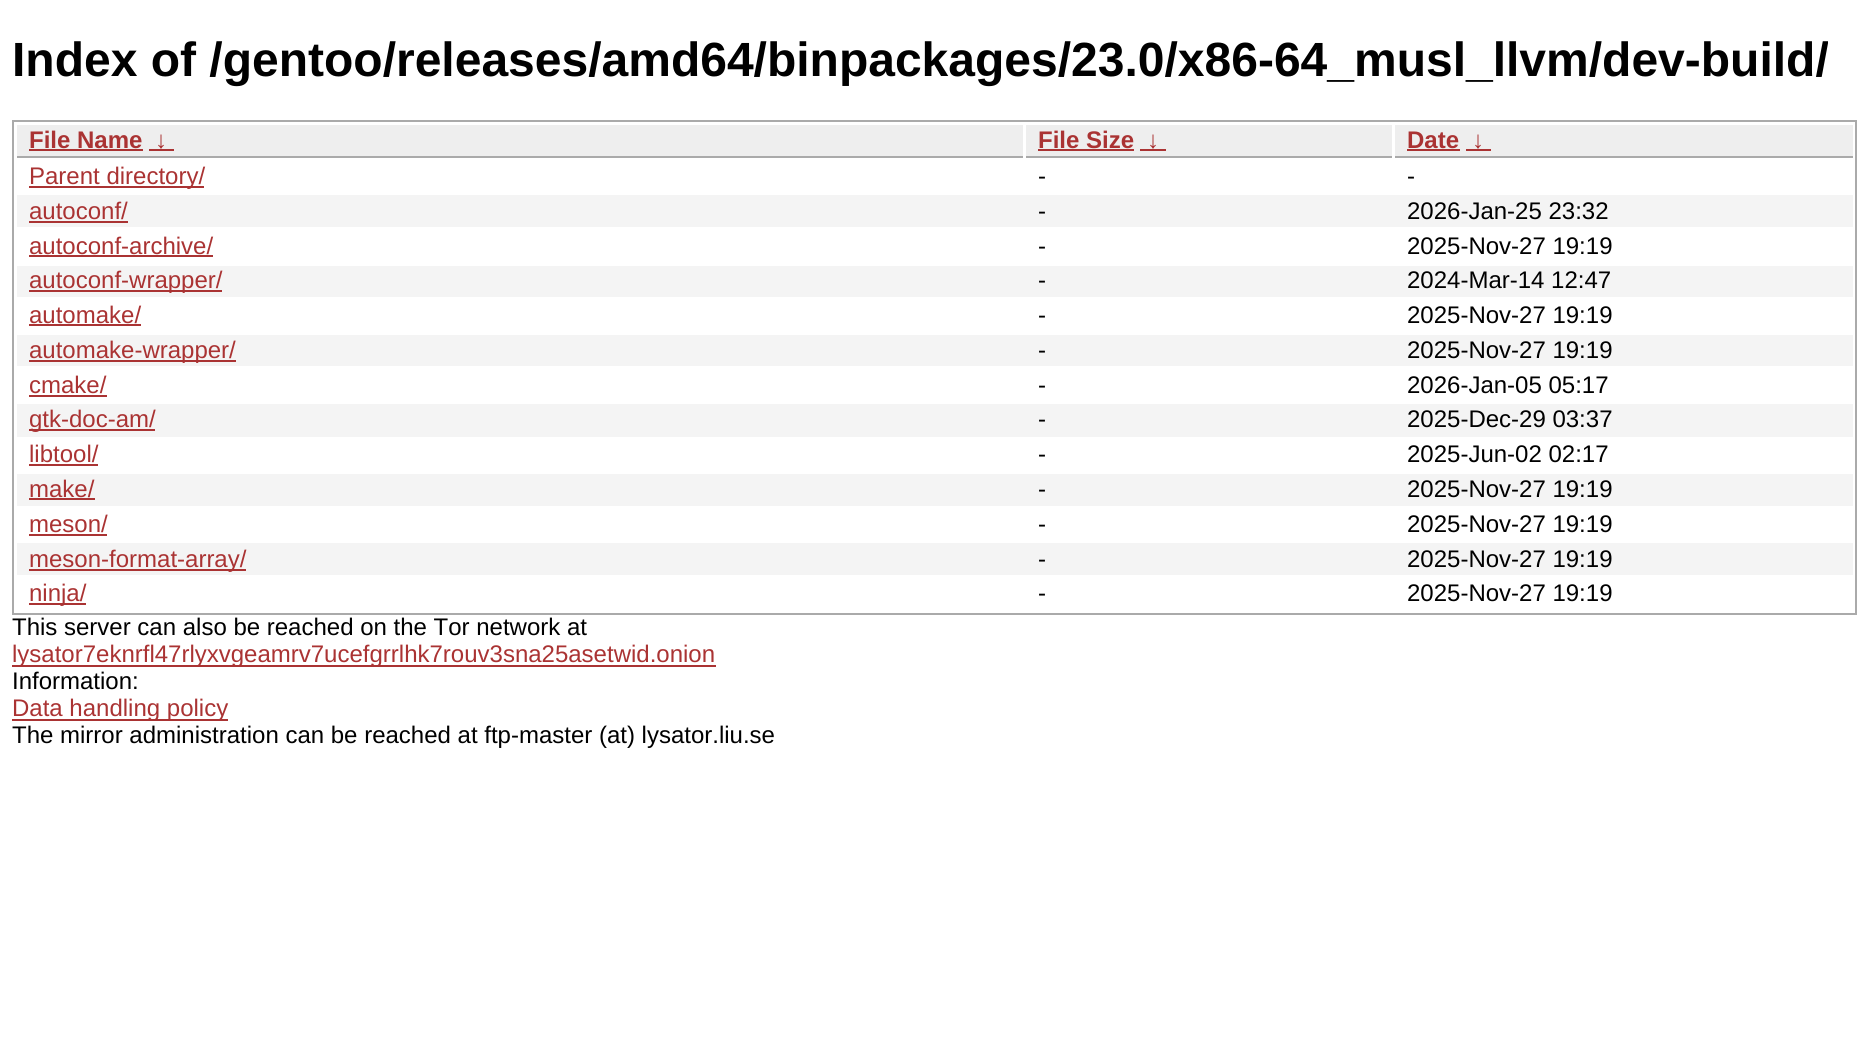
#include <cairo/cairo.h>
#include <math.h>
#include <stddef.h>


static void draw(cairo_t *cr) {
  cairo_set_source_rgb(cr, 1, 1, 1);
  cairo_paint(cr);
  cairo_rectangle(cr, 13, 121, 1843, 493);
  cairo_set_source_rgb(cr, 170 / 255.0, 170 / 255.0, 170 / 255.0);
  cairo_stroke(cr);
  cairo_set_source_rgb(cr, 238 / 255.0, 238 / 255.0, 238 / 255.0);
  cairo_rectangle(cr, 17, 125, 1006, 31);
  cairo_fill(cr);
  cairo_set_source_rgb(cr, 170 / 255.0, 170 / 255.0, 170 / 255.0);
  cairo_rectangle(cr, 17, 156, 1006, 2);
  cairo_fill(cr);
  cairo_set_source_rgb(cr, 170 / 255.0, 51 / 255.0, 51 / 255.0);
  cairo_rectangle(cr, 29, 149, 114, 2);
  cairo_fill(cr);
  cairo_rectangle(cr, 149, 149, 25, 2);
  cairo_fill(cr);
  cairo_set_source_rgb(cr, 238 / 255.0, 238 / 255.0, 238 / 255.0);
  cairo_rectangle(cr, 1026, 125, 366, 31);
  cairo_fill(cr);
  cairo_set_source_rgb(cr, 170 / 255.0, 170 / 255.0, 170 / 255.0);
  cairo_rectangle(cr, 1026, 156, 366, 2);
  cairo_fill(cr);
  cairo_set_source_rgb(cr, 170 / 255.0, 51 / 255.0, 51 / 255.0);
  cairo_rectangle(cr, 1038, 149, 96, 2);
  cairo_fill(cr);
  cairo_rectangle(cr, 1140, 149, 26, 2);
  cairo_fill(cr);
  cairo_set_source_rgb(cr, 238 / 255.0, 238 / 255.0, 238 / 255.0);
  cairo_rectangle(cr, 1395, 125, 458, 31);
  cairo_fill(cr);
  cairo_set_source_rgb(cr, 170 / 255.0, 170 / 255.0, 170 / 255.0);
  cairo_rectangle(cr, 1395, 156, 458, 2);
  cairo_fill(cr);
  cairo_set_source_rgb(cr, 170 / 255.0, 51 / 255.0, 51 / 255.0);
  cairo_rectangle(cr, 1407, 149, 53, 2);
  cairo_fill(cr);
  cairo_rectangle(cr, 1466, 149, 25, 2);
  cairo_fill(cr);
  cairo_rectangle(cr, 29, 186, 175, 2);
  cairo_fill(cr);
  cairo_set_source_rgb(cr, 244 / 255.0, 244 / 255.0, 244 / 255.0);
  cairo_rectangle(cr, 17, 195, 1836, 32);
  cairo_fill(cr);
  cairo_set_source_rgb(cr, 170 / 255.0, 51 / 255.0, 51 / 255.0);
  cairo_rectangle(cr, 29, 221, 99, 2);
  cairo_fill(cr);
  cairo_rectangle(cr, 29, 255, 184, 2);
  cairo_fill(cr);
  cairo_set_source_rgb(cr, 244 / 255.0, 244 / 255.0, 244 / 255.0);
  cairo_rectangle(cr, 17, 266, 1836, 31);
  cairo_fill(cr);
  cairo_set_source_rgb(cr, 170 / 255.0, 51 / 255.0, 51 / 255.0);
  cairo_rectangle(cr, 29, 290, 193, 2);
  cairo_fill(cr);
  cairo_rectangle(cr, 29, 324, 112, 2);
  cairo_fill(cr);
  cairo_set_source_rgb(cr, 244 / 255.0, 244 / 255.0, 244 / 255.0);
  cairo_rectangle(cr, 17, 335, 1836, 31);
  cairo_fill(cr);
  cairo_set_source_rgb(cr, 170 / 255.0, 51 / 255.0, 51 / 255.0);
  cairo_rectangle(cr, 29, 360, 207, 2);
  cairo_fill(cr);
  cairo_rectangle(cr, 29, 395, 78, 2);
  cairo_fill(cr);
  cairo_set_source_rgb(cr, 244 / 255.0, 244 / 255.0, 244 / 255.0);
  cairo_rectangle(cr, 17, 404, 1836, 33);
  cairo_fill(cr);
  cairo_set_source_rgb(cr, 170 / 255.0, 51 / 255.0, 51 / 255.0);
  cairo_rectangle(cr, 29, 429, 126, 2);
  cairo_fill(cr);
  cairo_rectangle(cr, 29, 464, 69, 2);
  cairo_fill(cr);
  cairo_set_source_rgb(cr, 244 / 255.0, 244 / 255.0, 244 / 255.0);
  cairo_rectangle(cr, 17, 474, 1836, 32);
  cairo_fill(cr);
  cairo_set_source_rgb(cr, 170 / 255.0, 51 / 255.0, 51 / 255.0);
  cairo_rectangle(cr, 29, 498, 66, 2);
  cairo_fill(cr);
  cairo_rectangle(cr, 29, 534, 78, 2);
  cairo_fill(cr);
  cairo_set_source_rgb(cr, 244 / 255.0, 244 / 255.0, 244 / 255.0);
  cairo_rectangle(cr, 17, 543, 1836, 32);
  cairo_fill(cr);
  cairo_set_source_rgb(cr, 170 / 255.0, 51 / 255.0, 51 / 255.0);
  cairo_rectangle(cr, 29, 569, 217, 2);
  cairo_fill(cr);
  cairo_rectangle(cr, 29, 603, 57, 2);
  cairo_fill(cr);
  cairo_rectangle(cr, 12, 665, 704, 2);
  cairo_fill(cr);
  cairo_rectangle(cr, 12, 719, 216, 2);
  cairo_fill(cr);
  cairo_select_font_face(cr, "Liberation Sans", CAIRO_FONT_SLANT_NORMAL, CAIRO_FONT_WEIGHT_BOLD);
  cairo_set_font_size(cr, 48);
  cairo_set_source_rgb(cr, 0, 0, 0);
  cairo_move_to(cr, 12, 76);
  cairo_show_text(cr, "Index of /gentoo/releases/amd64/binpackages/23.0/x86-64_musl_llvm/dev-build/");
  cairo_set_font_size(cr, 24);
  cairo_set_source_rgb(cr, 170 / 255.0, 51 / 255.0, 51 / 255.0);
  cairo_move_to(cr, 29, 148);
  cairo_show_text(cr, "File Name");
  cairo_move_to(cr, 155, 148);
  cairo_show_text(cr, "↓");
  cairo_move_to(cr, 1038, 148);
  cairo_show_text(cr, "File Size");
  cairo_move_to(cr, 1147, 148);
  cairo_show_text(cr, "↓");
  cairo_move_to(cr, 1407, 148);
  cairo_show_text(cr, "Date");
  cairo_move_to(cr, 1472, 148);
  cairo_show_text(cr, "↓");
  cairo_select_font_face(cr, "Liberation Sans", CAIRO_FONT_SLANT_NORMAL, CAIRO_FONT_WEIGHT_NORMAL);
  cairo_move_to(cr, 29, 184);
  cairo_show_text(cr, "Parent directory/");
  cairo_set_source_rgb(cr, 0, 0, 0);
  cairo_move_to(cr, 1038, 184);
  cairo_show_text(cr, "-");
  cairo_move_to(cr, 1407, 184);
  cairo_show_text(cr, "-");
  cairo_set_source_rgb(cr, 170 / 255.0, 51 / 255.0, 51 / 255.0);
  cairo_move_to(cr, 29, 219);
  cairo_show_text(cr, "autoconf/");
  cairo_set_source_rgb(cr, 0, 0, 0);
  cairo_move_to(cr, 1038, 219);
  cairo_show_text(cr, "-");
  cairo_move_to(cr, 1407, 219);
  cairo_show_text(cr, "2026-Jan-25 23:32");
  cairo_set_source_rgb(cr, 170 / 255.0, 51 / 255.0, 51 / 255.0);
  cairo_move_to(cr, 29, 254);
  cairo_show_text(cr, "autoconf-archive/");
  cairo_set_source_rgb(cr, 0, 0, 0);
  cairo_move_to(cr, 1038, 254);
  cairo_show_text(cr, "-");
  cairo_move_to(cr, 1407, 254);
  cairo_show_text(cr, "2025-Nov-27 19:19");
  cairo_set_source_rgb(cr, 170 / 255.0, 51 / 255.0, 51 / 255.0);
  cairo_move_to(cr, 29, 288);
  cairo_show_text(cr, "autoconf-wrapper/");
  cairo_set_source_rgb(cr, 0, 0, 0);
  cairo_move_to(cr, 1038, 288);
  cairo_show_text(cr, "-");
  cairo_move_to(cr, 1407, 288);
  cairo_show_text(cr, "2024-Mar-14 12:47");
  cairo_set_source_rgb(cr, 170 / 255.0, 51 / 255.0, 51 / 255.0);
  cairo_move_to(cr, 29, 323);
  cairo_show_text(cr, "automake/");
  cairo_set_source_rgb(cr, 0, 0, 0);
  cairo_move_to(cr, 1038, 323);
  cairo_show_text(cr, "-");
  cairo_move_to(cr, 1407, 323);
  cairo_show_text(cr, "2025-Nov-27 19:19");
  cairo_set_source_rgb(cr, 170 / 255.0, 51 / 255.0, 51 / 255.0);
  cairo_move_to(cr, 29, 358);
  cairo_show_text(cr, "automake-wrapper/");
  cairo_set_source_rgb(cr, 0, 0, 0);
  cairo_move_to(cr, 1038, 358);
  cairo_show_text(cr, "-");
  cairo_move_to(cr, 1407, 358);
  cairo_show_text(cr, "2025-Nov-27 19:19");
  cairo_set_source_rgb(cr, 170 / 255.0, 51 / 255.0, 51 / 255.0);
  cairo_move_to(cr, 29, 393);
  cairo_show_text(cr, "cmake/");
  cairo_set_source_rgb(cr, 0, 0, 0);
  cairo_move_to(cr, 1038, 393);
  cairo_show_text(cr, "-");
  cairo_move_to(cr, 1407, 393);
  cairo_show_text(cr, "2026-Jan-05 05:17");
  cairo_set_source_rgb(cr, 170 / 255.0, 51 / 255.0, 51 / 255.0);
  cairo_move_to(cr, 29, 427);
  cairo_show_text(cr, "gtk-doc-am/");
  cairo_set_source_rgb(cr, 0, 0, 0);
  cairo_move_to(cr, 1038, 427);
  cairo_show_text(cr, "-");
  cairo_move_to(cr, 1407, 427);
  cairo_show_text(cr, "2025-Dec-29 03:37");
  cairo_set_source_rgb(cr, 170 / 255.0, 51 / 255.0, 51 / 255.0);
  cairo_move_to(cr, 29, 462);
  cairo_show_text(cr, "libtool/");
  cairo_set_source_rgb(cr, 0, 0, 0);
  cairo_move_to(cr, 1038, 462);
  cairo_show_text(cr, "-");
  cairo_move_to(cr, 1407, 462);
  cairo_show_text(cr, "2025-Jun-02 02:17");
  cairo_set_source_rgb(cr, 170 / 255.0, 51 / 255.0, 51 / 255.0);
  cairo_move_to(cr, 29, 497);
  cairo_show_text(cr, "make/");
  cairo_set_source_rgb(cr, 0, 0, 0);
  cairo_move_to(cr, 1038, 497);
  cairo_show_text(cr, "-");
  cairo_move_to(cr, 1407, 497);
  cairo_show_text(cr, "2025-Nov-27 19:19");
  cairo_set_source_rgb(cr, 170 / 255.0, 51 / 255.0, 51 / 255.0);
  cairo_move_to(cr, 29, 532);
  cairo_show_text(cr, "meson/");
  cairo_set_source_rgb(cr, 0, 0, 0);
  cairo_move_to(cr, 1038, 532);
  cairo_show_text(cr, "-");
  cairo_move_to(cr, 1407, 532);
  cairo_show_text(cr, "2025-Nov-27 19:19");
  cairo_set_source_rgb(cr, 170 / 255.0, 51 / 255.0, 51 / 255.0);
  cairo_move_to(cr, 29, 567);
  cairo_show_text(cr, "meson-format-array/");
  cairo_set_source_rgb(cr, 0, 0, 0);
  cairo_move_to(cr, 1038, 567);
  cairo_show_text(cr, "-");
  cairo_move_to(cr, 1407, 567);
  cairo_show_text(cr, "2025-Nov-27 19:19");
  cairo_set_source_rgb(cr, 170 / 255.0, 51 / 255.0, 51 / 255.0);
  cairo_move_to(cr, 29, 601);
  cairo_show_text(cr, "ninja/");
  cairo_set_source_rgb(cr, 0, 0, 0);
  cairo_move_to(cr, 1038, 601);
  cairo_show_text(cr, "-");
  cairo_move_to(cr, 1407, 601);
  cairo_show_text(cr, "2025-Nov-27 19:19");
  cairo_move_to(cr, 12, 635);
  cairo_show_text(cr, "This server can also be reached on the Tor network at");
  cairo_set_source_rgb(cr, 170 / 255.0, 51 / 255.0, 51 / 255.0);
  cairo_move_to(cr, 12, 662);
  cairo_show_text(cr, "lysator7eknrfl47rlyxvgeamrv7ucefgrrlhk7rouv3sna25asetwid.onion");
  cairo_set_source_rgb(cr, 0, 0, 0);
  cairo_move_to(cr, 12, 689);
  cairo_show_text(cr, "Information:");
  cairo_set_source_rgb(cr, 170 / 255.0, 51 / 255.0, 51 / 255.0);
  cairo_move_to(cr, 12, 716);
  cairo_show_text(cr, "Data handling policy");
  cairo_set_source_rgb(cr, 0, 0, 0);
  cairo_move_to(cr, 12, 743);
  cairo_show_text(cr, "The mirror administration can be reached at ftp-master (at) lysator.liu.se");
}

int main(void) {
  cairo_surface_t *surface = cairo_image_surface_create(CAIRO_FORMAT_RGB24, 1869, 1041);
  cairo_t *cr = cairo_create(surface);
  cairo_font_options_t *options = cairo_font_options_create();
  cairo_font_options_set_hint_metrics(options, CAIRO_HINT_METRICS_OFF);
  cairo_font_options_set_hint_style(options, CAIRO_HINT_STYLE_NONE);
  cairo_set_font_options(cr, options);
  cairo_set_miter_limit(cr, 4);
  draw(cr);
  cairo_surface_write_to_png(surface, "out.png");
  cairo_font_options_destroy(options);
  cairo_destroy(cr);
  cairo_surface_destroy(surface);
  return 0;
}
